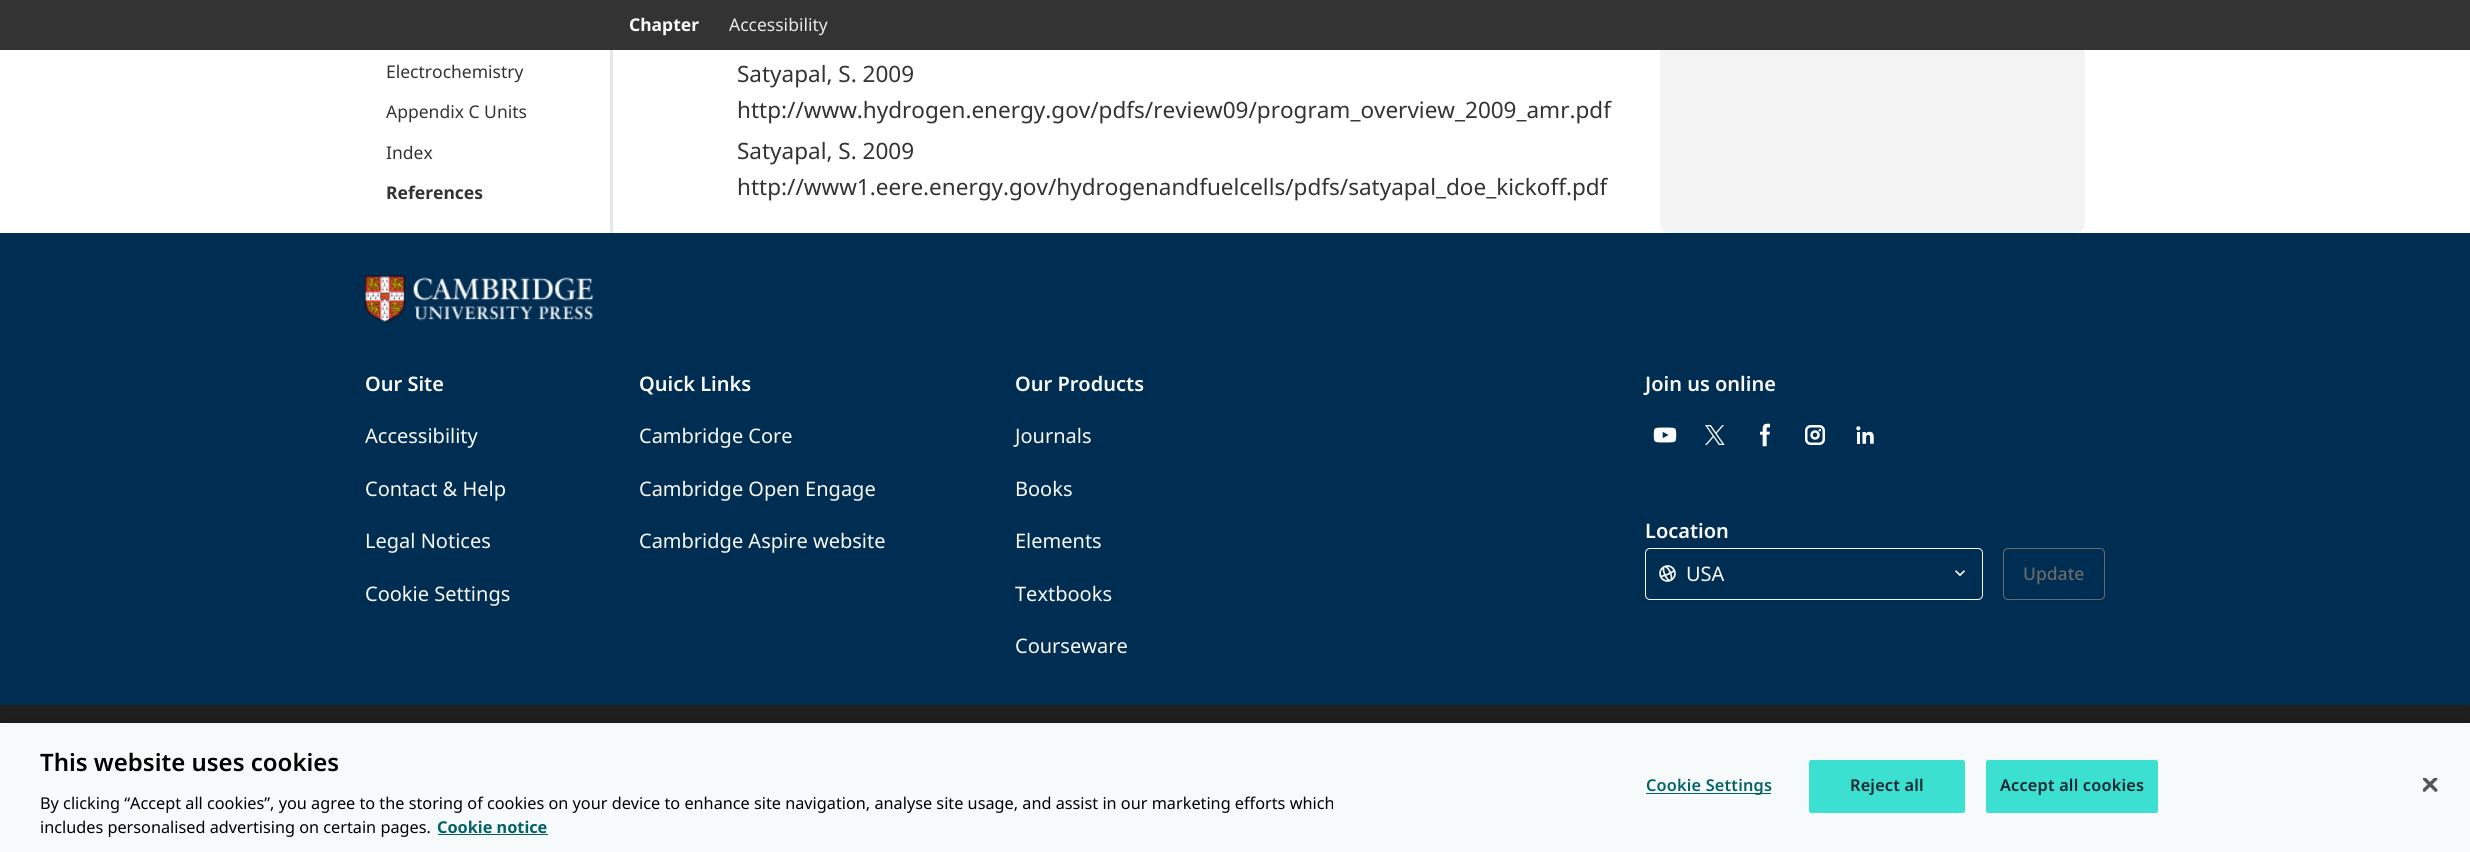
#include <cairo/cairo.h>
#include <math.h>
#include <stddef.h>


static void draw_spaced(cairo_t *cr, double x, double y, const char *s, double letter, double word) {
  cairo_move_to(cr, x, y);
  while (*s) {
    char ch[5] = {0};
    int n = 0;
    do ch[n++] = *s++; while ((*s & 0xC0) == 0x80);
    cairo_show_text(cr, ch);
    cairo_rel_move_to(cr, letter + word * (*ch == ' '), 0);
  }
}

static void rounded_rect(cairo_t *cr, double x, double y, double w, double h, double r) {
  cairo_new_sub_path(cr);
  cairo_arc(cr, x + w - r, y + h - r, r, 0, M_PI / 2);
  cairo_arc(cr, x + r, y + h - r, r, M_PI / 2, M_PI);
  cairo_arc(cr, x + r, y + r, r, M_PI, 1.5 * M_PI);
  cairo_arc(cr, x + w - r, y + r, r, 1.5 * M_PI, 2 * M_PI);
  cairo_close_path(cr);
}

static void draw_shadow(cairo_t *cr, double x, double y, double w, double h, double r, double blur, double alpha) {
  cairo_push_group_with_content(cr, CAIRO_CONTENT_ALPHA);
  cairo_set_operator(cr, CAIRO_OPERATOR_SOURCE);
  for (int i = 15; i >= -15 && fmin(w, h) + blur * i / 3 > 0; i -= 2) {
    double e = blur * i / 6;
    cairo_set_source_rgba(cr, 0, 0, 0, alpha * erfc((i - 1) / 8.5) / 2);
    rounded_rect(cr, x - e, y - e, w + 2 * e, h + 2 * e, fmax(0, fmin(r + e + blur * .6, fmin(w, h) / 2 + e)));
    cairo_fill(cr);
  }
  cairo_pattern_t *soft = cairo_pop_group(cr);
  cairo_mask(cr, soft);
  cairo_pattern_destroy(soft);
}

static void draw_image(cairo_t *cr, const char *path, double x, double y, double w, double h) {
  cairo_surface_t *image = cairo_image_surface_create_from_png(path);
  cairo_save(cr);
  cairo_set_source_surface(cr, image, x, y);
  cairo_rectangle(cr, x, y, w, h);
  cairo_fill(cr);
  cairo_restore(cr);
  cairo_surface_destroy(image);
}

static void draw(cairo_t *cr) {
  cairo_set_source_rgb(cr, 1, 1, 1);
  cairo_paint(cr);
  cairo_set_source_rgb(cr, 232 / 255.0, 232 / 255.0, 232 / 255.0);
  cairo_rectangle(cr, 610, 50, 3, 183);
  cairo_fill(cr);
  cairo_set_source_rgb(cr, 243 / 255.0, 243 / 255.0, 243 / 255.0);
  rounded_rect(cr, 1660, -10, 425, 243, 10);
  cairo_fill(cr);
  cairo_set_source_rgb(cr, 51 / 255.0, 51 / 255.0, 51 / 255.0);
  cairo_rectangle(cr, 0, 0, 2470, 50);
  cairo_fill(cr);
  cairo_set_source_rgb(cr, 0, 45 / 255.0, 82 / 255.0);
  cairo_rectangle(cr, 0, 233, 2470, 472);
  cairo_fill(cr);
  draw_image(cr, "images/1.png", 365, 275, 228, 48);
  draw_image(cr, "images/2.png", 1653, 427, 24, 16);
  draw_image(cr, "images/3.png", 1705, 425, 20, 20);
  draw_image(cr, "images/4.png", 1760, 423, 10, 24);
  draw_image(cr, "images/5.png", 1805, 425, 20, 20);
  draw_image(cr, "images/6.png", 1856, 426, 18, 18);
  rounded_rect(cr, 1645.5, 548.5, 337, 51, 4.5);
  cairo_set_source_rgb(cr, 250 / 255.0, 250 / 255.0, 250 / 255.0);
  cairo_set_line_width(cr, 1);
  cairo_stroke(cr);
  draw_image(cr, "images/7.png", 1659, 565, 17, 17);
  draw_image(cr, "images/8.png", 1955, 570, 10, 7);
  rounded_rect(cr, 2003.5, 548.5, 101, 51, 4.5);
  cairo_set_source_rgb(cr, 106 / 255.0, 106 / 255.0, 106 / 255.0);
  cairo_stroke(cr);
  cairo_set_source_rgb(cr, 31 / 255.0, 31 / 255.0, 31 / 255.0);
  cairo_rectangle(cr, 0, 705, 2470, 18);
  cairo_fill(cr);
  cairo_set_source_rgb(cr, 0, 0, 0);
  draw_shadow(cr, 0, 723, 2470, 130, 0, 11, 0.2);
  cairo_set_source_rgb(cr, 247 / 255.0, 250 / 255.0, 250 / 255.0);
  cairo_rectangle(cr, 0, 723, 2470, 129);
  cairo_fill(cr);
  cairo_set_source_rgb(cr, 3 / 255.0, 98 / 255.0, 104 / 255.0);
  cairo_rectangle(cr, 438, 834, 110, 1);
  cairo_fill(cr);
  cairo_rectangle(cr, 1646, 793, 125, 1);
  cairo_fill(cr);
  cairo_set_source_rgb(cr, 59 / 255.0, 224 / 255.0, 208 / 255.0);
  rounded_rect(cr, 1809.5, 760.5, 155, 52, 2);
  cairo_fill_preserve(cr);
  cairo_stroke(cr);
  rounded_rect(cr, 1986.5, 760.5, 171, 52, 2);
  cairo_fill_preserve(cr);
  cairo_stroke(cr);
  draw_image(cr, "images/9.png", 2423, 778, 15, 14);
  cairo_select_font_face(cr, "Noto Sans", CAIRO_FONT_SLANT_NORMAL, CAIRO_FONT_WEIGHT_NORMAL);
  cairo_set_font_size(cr, 17.5);
  cairo_set_source_rgb(cr, 51 / 255.0, 51 / 255.0, 51 / 255.0);
  cairo_move_to(cr, 386, 78);
  cairo_show_text(cr, "Electrochemistry");
  cairo_move_to(cr, 386, 118);
  cairo_show_text(cr, "Appendix C Units");
  cairo_move_to(cr, 386, 159);
  cairo_show_text(cr, "Index");
  cairo_select_font_face(cr, "Noto Sans", CAIRO_FONT_SLANT_NORMAL, CAIRO_FONT_WEIGHT_BOLD);
  cairo_move_to(cr, 386, 199);
  cairo_show_text(cr, "References");
  cairo_set_source_rgb(cr, 250 / 255.0, 250 / 255.0, 250 / 255.0);
  cairo_move_to(cr, 629, 31);
  cairo_show_text(cr, "Chapter");
  cairo_select_font_face(cr, "Noto Sans", CAIRO_FONT_SLANT_NORMAL, CAIRO_FONT_WEIGHT_NORMAL);
  cairo_set_source_rgb(cr, 232 / 255.0, 232 / 255.0, 232 / 255.0);
  cairo_move_to(cr, 729, 31);
  cairo_show_text(cr, "Accessibility");
  cairo_set_font_size(cr, 22.5);
  cairo_set_source_rgb(cr, 51 / 255.0, 51 / 255.0, 51 / 255.0);
  cairo_move_to(cr, 737, 82);
  cairo_show_text(cr, "Satyapal, S. 2009");
  cairo_move_to(cr, 737, 118);
  cairo_show_text(cr, "http://www.hydrogen.energy.gov/pdfs/review09/program_overview_2009_amr.pdf");
  cairo_move_to(cr, 737, 159);
  cairo_show_text(cr, "Satyapal, S. 2009");
  cairo_move_to(cr, 737, 195);
  cairo_show_text(cr, "http://www1.eere.energy.gov/hydrogenandfuelcells/pdfs/satyapal_doe_kickoff.pdf");
  cairo_select_font_face(cr, "Noto Sans SemiBold", CAIRO_FONT_SLANT_NORMAL, CAIRO_FONT_WEIGHT_NORMAL);
  cairo_set_font_size(cr, 20);
  cairo_set_source_rgb(cr, 250 / 255.0, 250 / 255.0, 250 / 255.0);
  cairo_move_to(cr, 365, 391);
  cairo_show_text(cr, "Our Site");
  cairo_select_font_face(cr, "Noto Sans", CAIRO_FONT_SLANT_NORMAL, CAIRO_FONT_WEIGHT_NORMAL);
  cairo_move_to(cr, 365, 443);
  cairo_show_text(cr, "Accessibility");
  cairo_move_to(cr, 365, 496);
  cairo_show_text(cr, "Contact & Help");
  cairo_move_to(cr, 365, 548);
  cairo_show_text(cr, "Legal Notices");
  cairo_move_to(cr, 365, 601);
  cairo_show_text(cr, "Cookie Settings");
  cairo_select_font_face(cr, "Noto Sans SemiBold", CAIRO_FONT_SLANT_NORMAL, CAIRO_FONT_WEIGHT_NORMAL);
  cairo_move_to(cr, 639, 391);
  cairo_show_text(cr, "Quick Links");
  cairo_select_font_face(cr, "Noto Sans", CAIRO_FONT_SLANT_NORMAL, CAIRO_FONT_WEIGHT_NORMAL);
  cairo_move_to(cr, 639, 443);
  cairo_show_text(cr, "Cambridge Core");
  cairo_move_to(cr, 639, 496);
  cairo_show_text(cr, "Cambridge Open Engage");
  cairo_move_to(cr, 639, 548);
  cairo_show_text(cr, "Cambridge Aspire website");
  cairo_select_font_face(cr, "Noto Sans SemiBold", CAIRO_FONT_SLANT_NORMAL, CAIRO_FONT_WEIGHT_NORMAL);
  cairo_move_to(cr, 1015, 391);
  cairo_show_text(cr, "Our Products");
  cairo_select_font_face(cr, "Noto Sans", CAIRO_FONT_SLANT_NORMAL, CAIRO_FONT_WEIGHT_NORMAL);
  cairo_move_to(cr, 1015, 443);
  cairo_show_text(cr, "Journals");
  cairo_move_to(cr, 1015, 496);
  cairo_show_text(cr, "Books");
  cairo_move_to(cr, 1015, 548);
  cairo_show_text(cr, "Elements");
  cairo_move_to(cr, 1015, 601);
  cairo_show_text(cr, "Textbooks");
  cairo_move_to(cr, 1015, 653);
  cairo_show_text(cr, "Courseware");
  cairo_select_font_face(cr, "Noto Sans SemiBold", CAIRO_FONT_SLANT_NORMAL, CAIRO_FONT_WEIGHT_NORMAL);
  cairo_move_to(cr, 1645, 391);
  cairo_show_text(cr, "Join us online");
  cairo_move_to(cr, 1645, 538);
  cairo_show_text(cr, "Location");
  cairo_select_font_face(cr, "Noto Sans", CAIRO_FONT_SLANT_NORMAL, CAIRO_FONT_WEIGHT_NORMAL);
  cairo_move_to(cr, 1686, 581);
  cairo_show_text(cr, "USA");
  cairo_select_font_face(cr, "Noto Sans Medium", CAIRO_FONT_SLANT_NORMAL, CAIRO_FONT_WEIGHT_NORMAL);
  cairo_set_font_size(cr, 17.5);
  cairo_set_source_rgb(cr, 106 / 255.0, 106 / 255.0, 106 / 255.0);
  cairo_move_to(cr, 2023, 580);
  cairo_show_text(cr, "Update");
  cairo_select_font_face(cr, "Noto Sans SemiBold", CAIRO_FONT_SLANT_NORMAL, CAIRO_FONT_WEIGHT_NORMAL);
  cairo_set_font_size(cr, 24);
  cairo_set_source_rgb(cr, 0, 0, 0);
  cairo_move_to(cr, 40, 771);
  cairo_show_text(cr, "This website uses cookies");
  cairo_select_font_face(cr, "Noto Sans", CAIRO_FONT_SLANT_NORMAL, CAIRO_FONT_WEIGHT_NORMAL);
  cairo_set_font_size(cr, 16.25);
  cairo_move_to(cr, 40, 809);
  cairo_show_text(cr, "By clicking “Accept all cookies”, you agree to the storing of cookies on your device to enhance site navigation, analyse site usage, and assist in our marketing efforts which");
  cairo_move_to(cr, 40, 833);
  cairo_show_text(cr, "includes personalised advertising on certain pages.");
  cairo_select_font_face(cr, "Noto Sans", CAIRO_FONT_SLANT_NORMAL, CAIRO_FONT_WEIGHT_BOLD);
  cairo_set_source_rgb(cr, 3 / 255.0, 98 / 255.0, 104 / 255.0);
  cairo_move_to(cr, 437, 833);
  cairo_show_text(cr, "Cookie notice");
  cairo_select_font_face(cr, "Noto Sans SemiBold", CAIRO_FONT_SLANT_NORMAL, CAIRO_FONT_WEIGHT_NORMAL);
  draw_spaced(cr, 1646, 791, "Cookie Settings", 0.2, 0);
  cairo_set_source_rgb(cr, 17 / 255.0, 39 / 255.0, 48 / 255.0);
  draw_spaced(cr, 1850, 791, "Reject all", 0.2, 0);
  draw_spaced(cr, 2000, 791, "Accept all cookies", 0.2, 0);
}

int main(void) {
  cairo_surface_t *surface = cairo_image_surface_create(CAIRO_FORMAT_RGB24, 2470, 852);
  cairo_t *cr = cairo_create(surface);
  cairo_font_options_t *options = cairo_font_options_create();
  cairo_font_options_set_hint_metrics(options, CAIRO_HINT_METRICS_OFF);
  cairo_font_options_set_hint_style(options, CAIRO_HINT_STYLE_NONE);
  cairo_set_font_options(cr, options);
  cairo_set_miter_limit(cr, 4);
  draw(cr);
  cairo_surface_write_to_png(surface, "out.png");
  cairo_font_options_destroy(options);
  cairo_destroy(cr);
  cairo_surface_destroy(surface);
  return 0;
}
